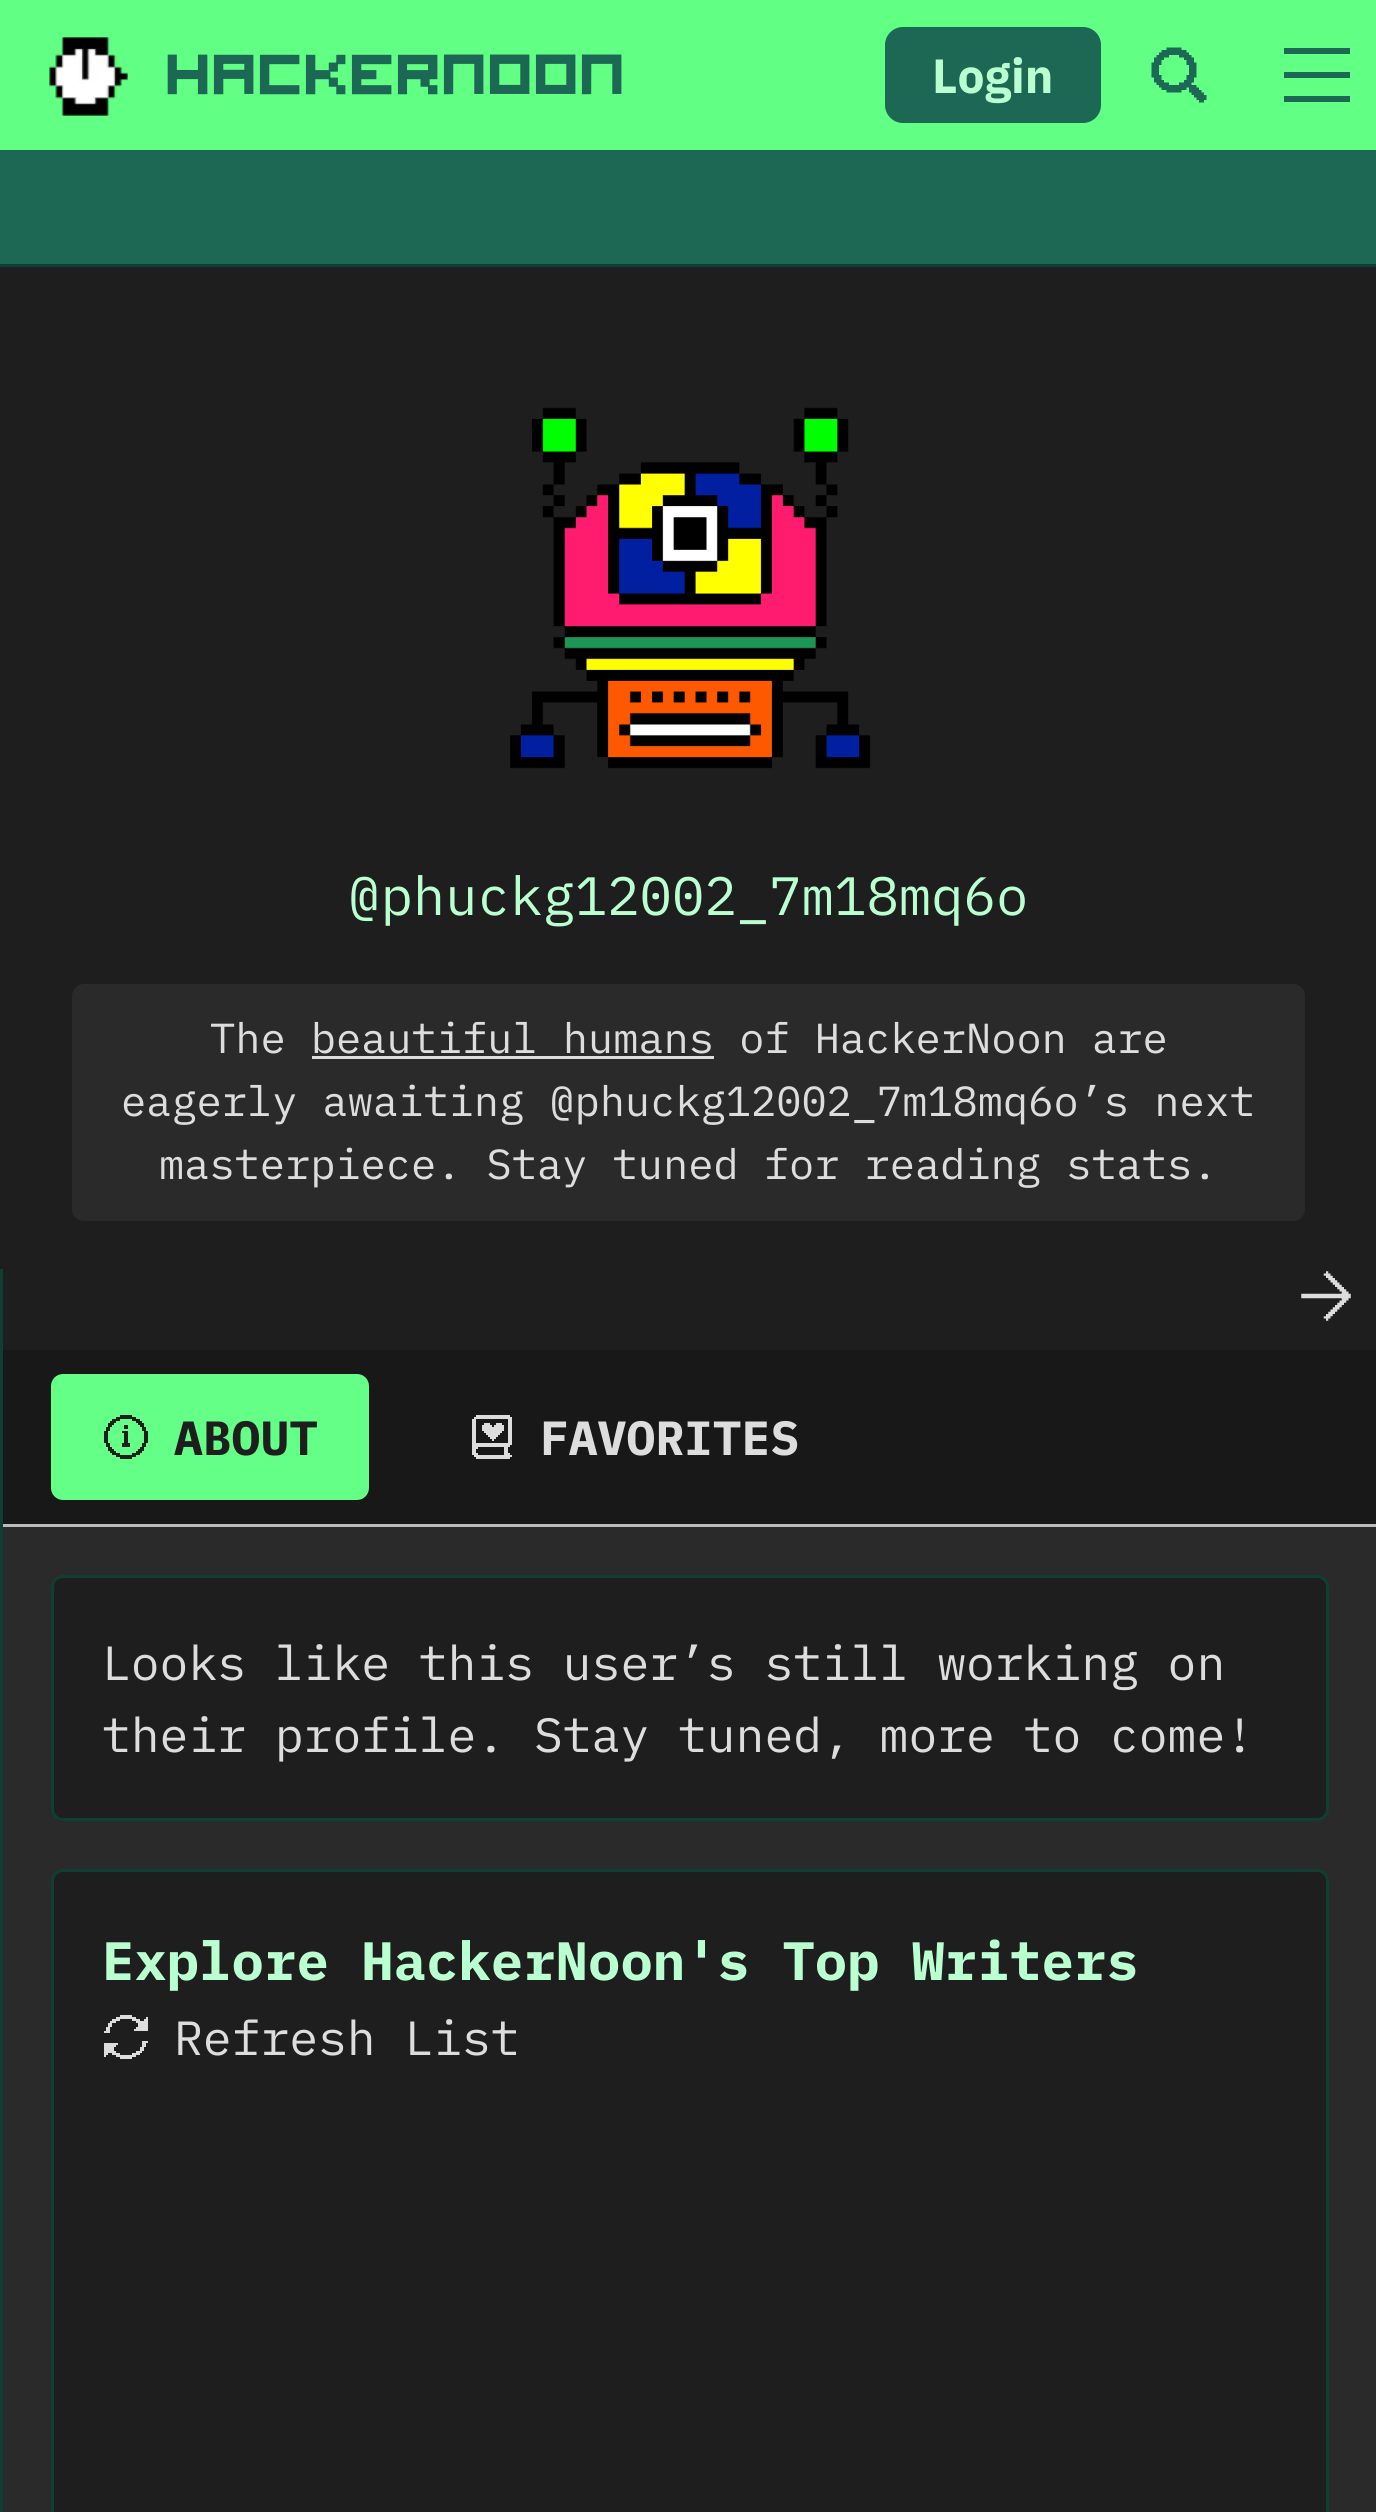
#include <cairo/cairo.h>
#include <math.h>
#include <stddef.h>


static void draw_spaced(cairo_t *cr, double x, double y, const char *s, double letter, double word) {
  cairo_move_to(cr, x, y);
  while (*s) {
    char ch[5] = {0};
    int n = 0;
    do ch[n++] = *s++; while ((*s & 0xC0) == 0x80);
    cairo_show_text(cr, ch);
    cairo_rel_move_to(cr, letter + word * (*ch == ' '), 0);
  }
}

static void rounded_rect(cairo_t *cr, double x, double y, double w, double h, double r) {
  cairo_new_sub_path(cr);
  cairo_arc(cr, x + w - r, y + h - r, r, 0, M_PI / 2);
  cairo_arc(cr, x + r, y + h - r, r, M_PI / 2, M_PI);
  cairo_arc(cr, x + r, y + r, r, M_PI, 1.5 * M_PI);
  cairo_arc(cr, x + w - r, y + r, r, 1.5 * M_PI, 2 * M_PI);
  cairo_close_path(cr);
}

static void draw_image(cairo_t *cr, const char *path, double x, double y, double w, double h) {
  cairo_surface_t *image = cairo_image_surface_create_from_png(path);
  cairo_save(cr);
  cairo_set_source_surface(cr, image, x, y);
  cairo_rectangle(cr, x, y, w, h);
  cairo_fill(cr);
  cairo_restore(cr);
  cairo_surface_destroy(image);
}

static void draw(cairo_t *cr) {
  cairo_set_source_rgb(cr, 30 / 255.0, 30 / 255.0, 30 / 255.0);
  cairo_paint(cr);
  cairo_set_source_rgb(cr, 97 / 255.0, 1, 131 / 255.0);
  cairo_rectangle(cr, 0, 0, 1376, 150);
  cairo_fill(cr);
  draw_image(cr, "images/1.png", 49, 37, 79, 79);
  cairo_set_source_rgb(cr, 29 / 255.0, 104 / 255.0, 84 / 255.0);
  rounded_rect(cr, 885, 27, 216, 96, 18);
  cairo_fill(cr);
  draw_image(cr, "images/2.png", 1151, 47, 56, 56);
  cairo_new_path(cr);
  cairo_move_to(cr, 1284, 72);
  cairo_line_to(cr, 1350, 72);
  cairo_line_to(cr, 1350, 78);
  cairo_line_to(cr, 1284, 78);
  cairo_close_path(cr);
  cairo_move_to(cr, 1284, 96);
  cairo_line_to(cr, 1350, 96);
  cairo_line_to(cr, 1350, 102);
  cairo_line_to(cr, 1284, 102);
  cairo_close_path(cr);
  cairo_move_to(cr, 1284, 48);
  cairo_line_to(cr, 1350, 48);
  cairo_line_to(cr, 1350, 54);
  cairo_line_to(cr, 1284, 54);
  cairo_close_path(cr);
  cairo_fill(cr);
  cairo_rectangle(cr, 0, 150, 1376, 114);
  cairo_fill(cr);
  cairo_set_source_rgb(cr, 14 / 255.0, 63 / 255.0, 50 / 255.0);
  cairo_rectangle(cr, 0, 264, 1376, 3);
  cairo_fill(cr);
  draw_image(cr, "images/3.png", 510, 407, 361, 362);
  cairo_set_source_rgb(cr, 42 / 255.0, 42 / 255.0, 42 / 255.0);
  rounded_rect(cr, 72, 984, 1233, 237, 12);
  cairo_fill(cr);
  cairo_set_source_rgb(cr, 221 / 255.0, 221 / 255.0, 221 / 255.0);
  cairo_rectangle(cr, 312, 1056, 402, 3);
  cairo_fill(cr);
  cairo_set_source_rgb(cr, 42 / 255.0, 42 / 255.0, 42 / 255.0);
  cairo_rectangle(cr, 3, 1527, 1373, 985);
  cairo_fill(cr);
  cairo_set_source_rgb(cr, 14 / 255.0, 63 / 255.0, 50 / 255.0);
  cairo_rectangle(cr, 0, 1269, 3, 1243);
  cairo_fill(cr);
  cairo_set_source_rgb(cr, 187 / 255.0, 187 / 255.0, 187 / 255.0);
  cairo_rectangle(cr, 3, 1524, 1373, 3);
  cairo_fill(cr);
  draw_image(cr, "images/4.png", 1301, 1271, 50, 50);
  cairo_set_source_rgb(cr, 24 / 255.0, 24 / 255.0, 24 / 255.0);
  cairo_rectangle(cr, 3, 1350, 1373, 174);
  cairo_fill(cr);
  cairo_set_source_rgb(cr, 99 / 255.0, 1, 134 / 255.0);
  rounded_rect(cr, 51, 1374, 318, 126, 12);
  cairo_fill(cr);
  draw_image(cr, "images/5.png", 104, 1415, 44, 44);
  draw_image(cr, "images/6.png", 472, 1415, 40, 44);
  cairo_set_source_rgb(cr, 30 / 255.0, 30 / 255.0, 30 / 255.0);
  rounded_rect(cr, 52.5, 1576.5, 1275, 243, 10.5);
  cairo_fill_preserve(cr);
  cairo_set_source_rgb(cr, 14 / 255.0, 63 / 255.0, 50 / 255.0);
  cairo_set_line_width(cr, 3);
  cairo_stroke(cr);
  cairo_set_source_rgb(cr, 30 / 255.0, 30 / 255.0, 30 / 255.0);
  rounded_rect(cr, 52.5, 1870.5, 1275, 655, 10.5);
  cairo_fill_preserve(cr);
  cairo_set_source_rgb(cr, 14 / 255.0, 63 / 255.0, 50 / 255.0);
  cairo_stroke(cr);
  draw_image(cr, "images/7.png", 104, 2015, 44, 44);
  cairo_select_font_face(cr, "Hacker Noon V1", CAIRO_FONT_SLANT_NORMAL, CAIRO_FONT_WEIGHT_BOLD);
  cairo_set_font_size(cr, 54);
  cairo_set_source_rgb(cr, 29 / 255.0, 104 / 255.0, 84 / 255.0);
  draw_spaced(cr, 165, 89, "Hackernoon", 2.75, 0);
  cairo_select_font_face(cr, "IBM Plex Sans", CAIRO_FONT_SLANT_NORMAL, CAIRO_FONT_WEIGHT_BOLD);
  cairo_set_font_size(cr, 48);
  cairo_set_source_rgb(cr, 185 / 255.0, 1, 208 / 255.0);
  cairo_move_to(cr, 932, 93);
  cairo_show_text(cr, "Login");
  cairo_select_font_face(cr, "IBM Plex Mono", CAIRO_FONT_SLANT_NORMAL, CAIRO_FONT_WEIGHT_NORMAL);
  cairo_set_font_size(cr, 54);
  cairo_move_to(cr, 348, 915);
  cairo_show_text(cr, "@phuckg12002_7m18mq6o");
  cairo_set_font_size(cr, 42);
  cairo_set_source_rgb(cr, 221 / 255.0, 221 / 255.0, 221 / 255.0);
  cairo_move_to(cr, 210, 1053);
  cairo_show_text(cr, "The beautiful humans of HackerNoon are");
  cairo_move_to(cr, 121, 1116);
  cairo_show_text(cr, "eagerly awaiting @phuckg12002_7m18mq6o’s next");
  cairo_move_to(cr, 159, 1179);
  cairo_show_text(cr, "masterpiece. Stay tuned for reading stats.");
  cairo_select_font_face(cr, "IBM Plex Mono", CAIRO_FONT_SLANT_NORMAL, CAIRO_FONT_WEIGHT_BOLD);
  cairo_set_font_size(cr, 48);
  cairo_set_source_rgb(cr, 30 / 255.0, 30 / 255.0, 30 / 255.0);
  cairo_move_to(cr, 174, 1455);
  cairo_show_text(cr, "ABOUT");
  cairo_set_source_rgb(cr, 221 / 255.0, 221 / 255.0, 221 / 255.0);
  cairo_move_to(cr, 540, 1455);
  cairo_show_text(cr, "FAVORITES");
  cairo_select_font_face(cr, "IBM Plex Mono", CAIRO_FONT_SLANT_NORMAL, CAIRO_FONT_WEIGHT_NORMAL);
  cairo_move_to(cr, 102, 1680);
  cairo_show_text(cr, "Looks like this user’s still working on");
  cairo_move_to(cr, 102, 1752);
  cairo_show_text(cr, "their profile. Stay tuned, more to come!");
  cairo_select_font_face(cr, "IBM Plex Mono", CAIRO_FONT_SLANT_NORMAL, CAIRO_FONT_WEIGHT_BOLD);
  cairo_set_font_size(cr, 54);
  cairo_set_source_rgb(cr, 185 / 255.0, 1, 208 / 255.0);
  cairo_move_to(cr, 102, 1980);
  cairo_show_text(cr, "Explore HackerNoon's Top Writers");
  cairo_select_font_face(cr, "IBM Plex Mono", CAIRO_FONT_SLANT_NORMAL, CAIRO_FONT_WEIGHT_NORMAL);
  cairo_set_font_size(cr, 48);
  cairo_set_source_rgb(cr, 221 / 255.0, 221 / 255.0, 221 / 255.0);
  cairo_move_to(cr, 174, 2055);
  cairo_show_text(cr, "Refresh List");
}

int main(void) {
  cairo_surface_t *surface = cairo_image_surface_create(CAIRO_FORMAT_RGB24, 1376, 2512);
  cairo_t *cr = cairo_create(surface);
  cairo_font_options_t *options = cairo_font_options_create();
  cairo_font_options_set_hint_metrics(options, CAIRO_HINT_METRICS_OFF);
  cairo_font_options_set_hint_style(options, CAIRO_HINT_STYLE_NONE);
  cairo_set_font_options(cr, options);
  cairo_set_miter_limit(cr, 4);
  draw(cr);
  cairo_surface_write_to_png(surface, "out.png");
  cairo_font_options_destroy(options);
  cairo_destroy(cr);
  cairo_surface_destroy(surface);
  return 0;
}
